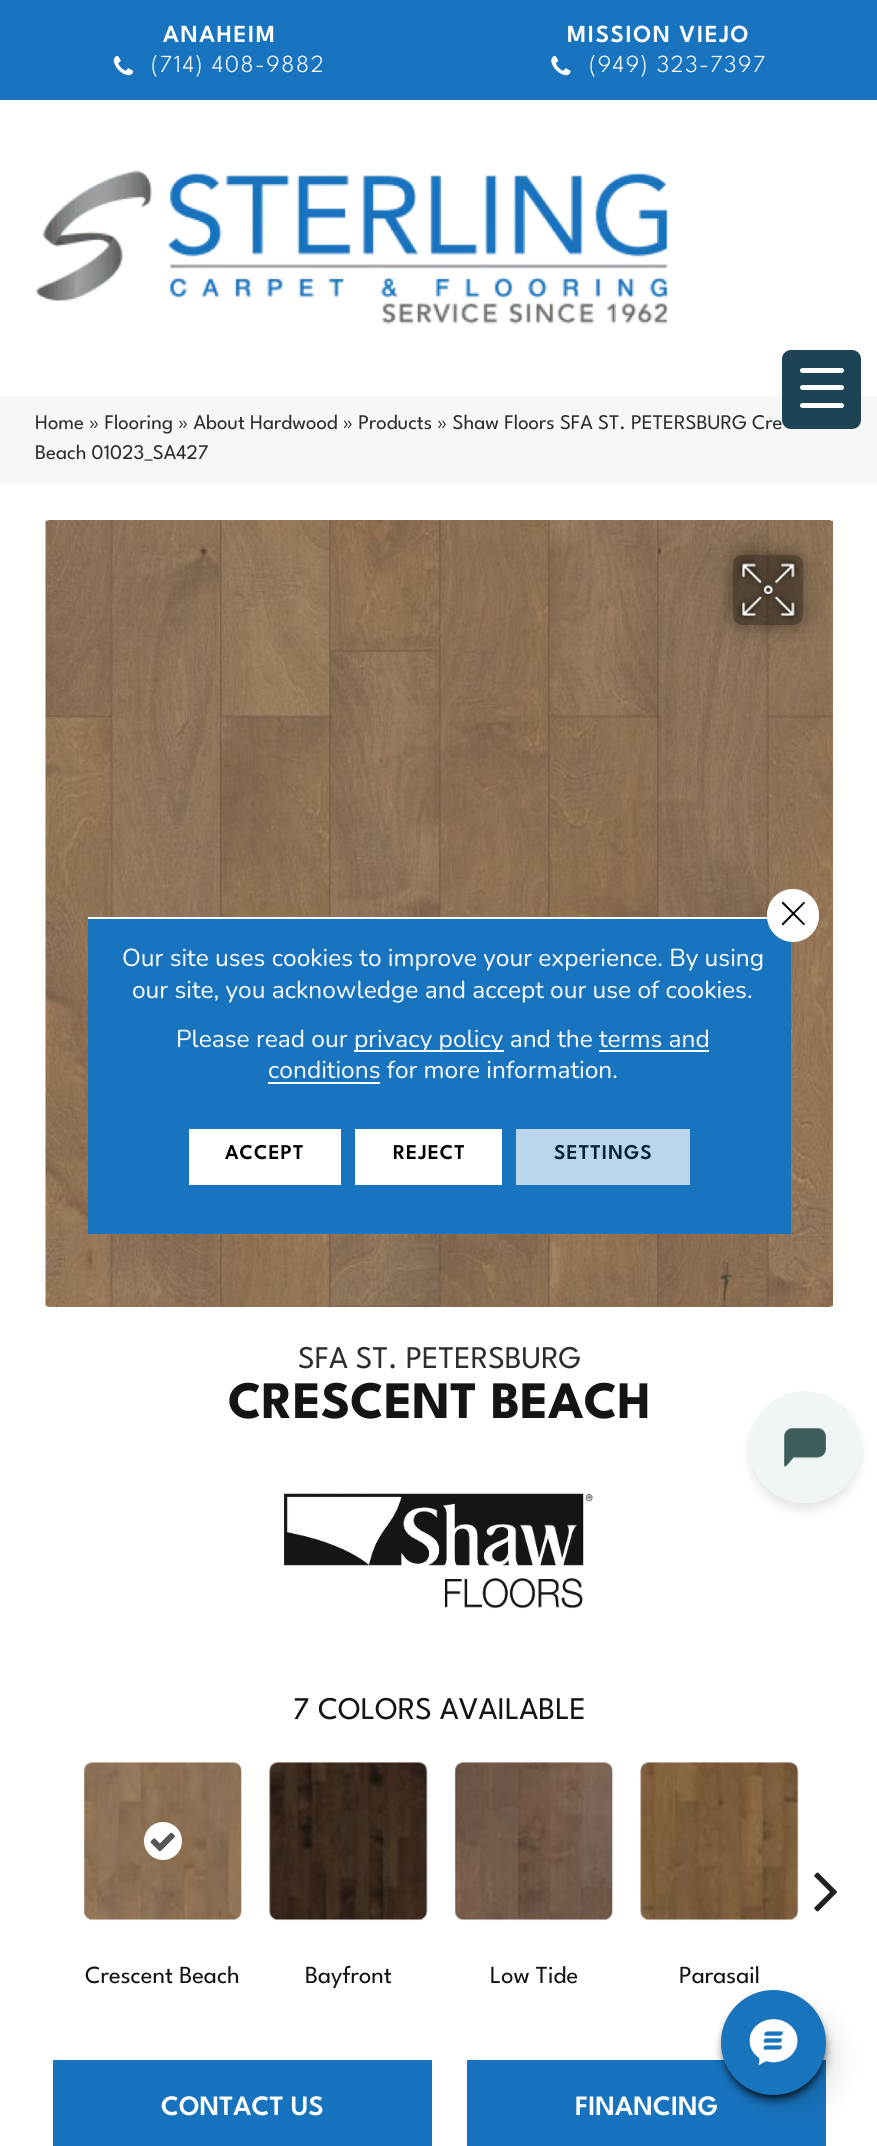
#include <cairo/cairo.h>
#include <math.h>
#include <stddef.h>


static void draw_spaced(cairo_t *cr, double x, double y, const char *s, double letter, double word) {
  cairo_move_to(cr, x, y);
  while (*s) {
    char ch[5] = {0};
    int n = 0;
    do ch[n++] = *s++; while ((*s & 0xC0) == 0x80);
    cairo_show_text(cr, ch);
    cairo_rel_move_to(cr, letter + word * (*ch == ' '), 0);
  }
}

static void rounded_rect(cairo_t *cr, double x, double y, double w, double h, double r) {
  cairo_new_sub_path(cr);
  cairo_arc(cr, x + w - r, y + h - r, r, 0, M_PI / 2);
  cairo_arc(cr, x + r, y + h - r, r, M_PI / 2, M_PI);
  cairo_arc(cr, x + r, y + r, r, M_PI, 1.5 * M_PI);
  cairo_arc(cr, x + w - r, y + r, r, 1.5 * M_PI, 2 * M_PI);
  cairo_close_path(cr);
}

static void draw_shadow(cairo_t *cr, double x, double y, double w, double h, double r, double blur, double alpha) {
  cairo_push_group_with_content(cr, CAIRO_CONTENT_ALPHA);
  cairo_set_operator(cr, CAIRO_OPERATOR_SOURCE);
  for (int i = 15; i >= -15 && fmin(w, h) + blur * i / 3 > 0; i -= 2) {
    double e = blur * i / 6;
    cairo_set_source_rgba(cr, 0, 0, 0, alpha * erfc((i - 1) / 8.5) / 2);
    rounded_rect(cr, x - e, y - e, w + 2 * e, h + 2 * e, fmax(0, fmin(r + e + blur * .6, fmin(w, h) / 2 + e)));
    cairo_fill(cr);
  }
  cairo_pattern_t *soft = cairo_pop_group(cr);
  cairo_mask(cr, soft);
  cairo_pattern_destroy(soft);
}

static void draw_image(cairo_t *cr, const char *path, double x, double y, double w, double h) {
  cairo_surface_t *image = cairo_image_surface_create_from_png(path);
  cairo_save(cr);
  cairo_set_source_surface(cr, image, x, y);
  cairo_rectangle(cr, x, y, w, h);
  cairo_fill(cr);
  cairo_restore(cr);
  cairo_surface_destroy(image);
}

static void draw(cairo_t *cr) {
  cairo_set_source_rgb(cr, 1, 1, 1);
  cairo_paint(cr);
  cairo_set_source_rgb(cr, 24 / 255.0, 116 / 255.0, 191 / 255.0);
  cairo_rectangle(cr, 0, 0, 877, 100);
  cairo_fill(cr);
  draw_image(cr, "images/1.png", 113, 56, 20, 20);
  draw_image(cr, "images/2.png", 551, 56, 20, 20);
  draw_image(cr, "images/3.png", 36, 170, 632, 154);
  cairo_set_source_rgb(cr, 247 / 255.0, 247 / 255.0, 247 / 255.0);
  cairo_rectangle(cr, 0, 396, 877, 89);
  cairo_fill(cr);
  draw_image(cr, "images/4.png", 45, 520, 788, 787);
  cairo_save(cr);
  cairo_set_fill_rule(cr, CAIRO_FILL_RULE_EVEN_ODD);
  cairo_new_path(cr);
  cairo_move_to(cr, 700, 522);
  cairo_line_to(cr, 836, 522);
  cairo_line_to(cr, 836, 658);
  cairo_line_to(cr, 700, 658);
  cairo_close_path(cr);
  cairo_move_to(cr, 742, 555);
  cairo_line_to(cr, 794, 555);
  cairo_curve_to(cr, 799, 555, 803, 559, 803, 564);
  cairo_line_to(cr, 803, 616);
  cairo_curve_to(cr, 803, 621, 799, 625, 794, 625);
  cairo_line_to(cr, 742, 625);
  cairo_curve_to(cr, 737, 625, 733, 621, 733, 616);
  cairo_line_to(cr, 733, 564);
  cairo_curve_to(cr, 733, 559, 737, 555, 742, 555);
  cairo_close_path(cr);
  cairo_clip(cr);
  cairo_set_source_rgb(cr, 0, 0, 0);
  draw_shadow(cr, 733, 555, 70, 70, 9, 10.5, 0.41);
  cairo_restore(cr);
  cairo_set_source_rgba(cr, 0, 0, 0, 0.4);
  rounded_rect(cr, 733, 555, 70, 70, 9);
  cairo_fill(cr);
  draw_image(cr, "images/5.png", 737, 558, 63, 63);
  draw_image(cr, "images/6.png", 284, 1493, 309, 116);
  draw_image(cr, "images/7.png", 814, 1872, 23, 40);
  draw_image(cr, "images/8.png", 83, 1761, 159, 160);
  cairo_set_source_rgb(cr, 1, 1, 1);
  cairo_arc(cr, 163, 1841, 19, 0, 2 * M_PI);
  cairo_fill(cr);
  draw_image(cr, "images/9.png", 150, 1832, 25, 20);
  draw_image(cr, "images/10.png", 269, 1761, 159, 160);
  draw_image(cr, "images/11.png", 454, 1761, 159, 160);
  draw_image(cr, "images/12.png", 640, 1761, 159, 160);
  cairo_set_source_rgb(cr, 23 / 255.0, 115 / 255.0, 190 / 255.0);
  cairo_rectangle(cr, 53, 2060, 379, 86);
  cairo_fill(cr);
  cairo_rectangle(cr, 467, 2060, 359, 86);
  cairo_fill(cr);
  cairo_set_source_rgb(cr, 24 / 255.0, 116 / 255.0, 191 / 255.0);
  cairo_rectangle(cr, 88, 919, 703, 315);
  cairo_fill(cr);
  cairo_set_source_rgb(cr, 1, 1, 1);
  cairo_rectangle(cr, 88, 917, 680, 2);
  cairo_fill(cr);
  cairo_rectangle(cr, 354, 1050, 150, 2);
  cairo_fill(cr);
  cairo_rectangle(cr, 599, 1050, 110, 2);
  cairo_fill(cr);
  cairo_rectangle(cr, 268, 1082, 112, 2);
  cairo_fill(cr);
  rounded_rect(cr, 768, 890, 50, 51, 25);
  cairo_fill_preserve(cr);
  cairo_stroke(cr);
  cairo_set_source_rgb(cr, 0, 0, 0);
  cairo_new_path(cr);
  cairo_move_to(cr, 804, 901.5);
  cairo_line_to(cr, 805, 903);
  cairo_line_to(cr, 783, 925.5);
  cairo_line_to(cr, 781.5, 924);
  cairo_close_path(cr);
  cairo_fill(cr);
  cairo_new_path(cr);
  cairo_move_to(cr, 781.5, 903);
  cairo_line_to(cr, 783, 901.5);
  cairo_line_to(cr, 805, 924);
  cairo_line_to(cr, 804, 925.5);
  cairo_close_path(cr);
  cairo_fill(cr);
  cairo_set_source_rgb(cr, 1, 1, 1);
  cairo_rectangle(cr, 189, 1129, 152, 56);
  cairo_fill(cr);
  cairo_rectangle(cr, 355, 1129, 147, 56);
  cairo_fill(cr);
  cairo_set_source_rgb(cr, 186 / 255.0, 213 / 255.0, 236 / 255.0);
  cairo_rectangle(cr, 516, 1129, 174, 56);
  cairo_fill(cr);
  cairo_set_source_rgb(cr, 0, 0, 0);
  draw_shadow(cr, 749, 1398, 112, 112, 56, 5, 0.1);
  draw_image(cr, "images/13.png", 749, 1391, 112, 112);
  draw_shadow(cr, 725, 2000, 98, 98, 49, 5, 1);
  draw_shadow(cr, 744, 2013, 94, 94, 47, 13, 0.1);
  cairo_set_source_rgb(cr, 25 / 255.0, 116 / 255.0, 190 / 255.0);
  cairo_arc(cr, 773.5, 2042.5, 52.5, 0, 2 * M_PI);
  cairo_fill(cr);
  draw_image(cr, "images/14.png", 749, 2019, 49, 47);
  cairo_select_font_face(cr, "League Spartan SemiBold", CAIRO_FONT_SLANT_NORMAL, CAIRO_FONT_WEIGHT_NORMAL);
  cairo_set_font_size(cr, 24.5);
  cairo_set_source_rgb(cr, 1, 1, 1);
  draw_spaced(cr, 163, 42, "ANAHEIM", 1.5, 0);
  cairo_select_font_face(cr, "League Spartan Light", CAIRO_FONT_SLANT_NORMAL, CAIRO_FONT_WEIGHT_NORMAL);
  draw_spaced(cr, 151, 72, "(714) 408-9882", 1.5, 0);
  cairo_select_font_face(cr, "League Spartan SemiBold", CAIRO_FONT_SLANT_NORMAL, CAIRO_FONT_WEIGHT_NORMAL);
  draw_spaced(cr, 567, 42, "MISSION VIEJO", 1.5, 0);
  cairo_select_font_face(cr, "League Spartan Light", CAIRO_FONT_SLANT_NORMAL, CAIRO_FONT_WEIGHT_NORMAL);
  draw_spaced(cr, 589, 72, "(949) 323-7397", 1.5, 0);
  cairo_select_font_face(cr, "League Spartan", CAIRO_FONT_SLANT_NORMAL, CAIRO_FONT_WEIGHT_NORMAL);
  cairo_set_font_size(cr, 20.8);
  cairo_set_source_rgb(cr, 46 / 255.0, 46 / 255.0, 46 / 255.0);
  cairo_move_to(cr, 35, 429);
  cairo_show_text(cr, "Home » Flooring » About Hardwood » Products » Shaw Floors SFA ST. PETERSBURG Cre");
  cairo_move_to(cr, 35, 459);
  cairo_show_text(cr, "Beach 01023_SA427");
  cairo_set_font_size(cr, 31.5);
  cairo_move_to(cr, 298, 1368);
  cairo_show_text(cr, "SFA ST. PETERSBURG");
  cairo_select_font_face(cr, "League Spartan", CAIRO_FONT_SLANT_NORMAL, CAIRO_FONT_WEIGHT_BOLD);
  cairo_set_font_size(cr, 52.5);
  cairo_set_source_rgb(cr, 20 / 255.0, 20 / 255.0, 20 / 255.0);
  cairo_move_to(cr, 228, 1418);
  cairo_show_text(cr, "CRESCENT BEACH");
  cairo_select_font_face(cr, "League Spartan", CAIRO_FONT_SLANT_NORMAL, CAIRO_FONT_WEIGHT_NORMAL);
  cairo_set_font_size(cr, 31.5);
  cairo_move_to(cr, 293, 1719);
  cairo_show_text(cr, "7");
  cairo_move_to(cr, 318, 1719);
  cairo_show_text(cr, "COLORS AVAILABLE");
  cairo_set_font_size(cr, 24.5);
  cairo_move_to(cr, 85, 1983);
  cairo_show_text(cr, "Crescent Beach");
  cairo_move_to(cr, 305, 1983);
  cairo_show_text(cr, "Bayfront");
  cairo_move_to(cr, 490, 1983);
  cairo_show_text(cr, "Low Tide");
  cairo_move_to(cr, 679, 1983);
  cairo_show_text(cr, "Parasail");
  cairo_select_font_face(cr, "League Spartan SemiBold", CAIRO_FONT_SLANT_NORMAL, CAIRO_FONT_WEIGHT_NORMAL);
  cairo_set_font_size(cr, 28);
  cairo_set_source_rgb(cr, 1, 1, 1);
  cairo_move_to(cr, 161, 2115);
  cairo_show_text(cr, "CONTACT US");
  cairo_move_to(cr, 575, 2115);
  cairo_show_text(cr, "FINANCING");
  cairo_set_source_rgb(cr, 29 / 255.0, 67 / 255.0, 84 / 255.0);
  rounded_rect(cr, 782, 350, 79, 79, 9);
  cairo_fill(cr);
  cairo_set_source_rgb(cr, 1, 1, 1);
  rounded_rect(cr, 800, 385, 44, 5, 2.5);
  cairo_fill(cr);
  rounded_rect(cr, 800, 368, 44, 5, 2.5);
  cairo_fill(cr);
  rounded_rect(cr, 800, 403, 44, 5, 2.5);
  cairo_fill(cr);
  cairo_select_font_face(cr, "Nunito", CAIRO_FONT_SLANT_NORMAL, CAIRO_FONT_WEIGHT_NORMAL);
  cairo_set_font_size(cr, 24.5);
  cairo_move_to(cr, 122, 966);
  cairo_show_text(cr, "Our site uses cookies to improve your experience. By using");
  cairo_move_to(cr, 132, 998);
  cairo_show_text(cr, "our site, you acknowledge and accept our use of cookies.");
  cairo_move_to(cr, 176, 1047);
  cairo_show_text(cr, "Please read our");
  cairo_move_to(cr, 354, 1047);
  cairo_show_text(cr, "privacy policy and the terms and");
  cairo_move_to(cr, 268, 1078);
  cairo_show_text(cr, "conditions for more information.");
  cairo_select_font_face(cr, "League Spartan SemiBold", CAIRO_FONT_SLANT_NORMAL, CAIRO_FONT_WEIGHT_NORMAL);
  cairo_set_font_size(cr, 21);
  cairo_set_source_rgb(cr, 0, 0, 0);
  draw_spaced(cr, 225, 1159, "ACCEPT", 1, 0);
  draw_spaced(cr, 393, 1159, "REJECT", 1, 0);
  cairo_set_source_rgb(cr, 7 / 255.0, 35 / 255.0, 57 / 255.0);
  draw_spaced(cr, 554, 1159, "SETTINGS", 1, 0);
}

int main(void) {
  cairo_surface_t *surface = cairo_image_surface_create(CAIRO_FORMAT_RGB24, 877, 2146);
  cairo_t *cr = cairo_create(surface);
  cairo_font_options_t *options = cairo_font_options_create();
  cairo_font_options_set_hint_metrics(options, CAIRO_HINT_METRICS_OFF);
  cairo_font_options_set_hint_style(options, CAIRO_HINT_STYLE_NONE);
  cairo_set_font_options(cr, options);
  cairo_set_miter_limit(cr, 4);
  draw(cr);
  cairo_surface_write_to_png(surface, "out.png");
  cairo_font_options_destroy(options);
  cairo_destroy(cr);
  cairo_surface_destroy(surface);
  return 0;
}
